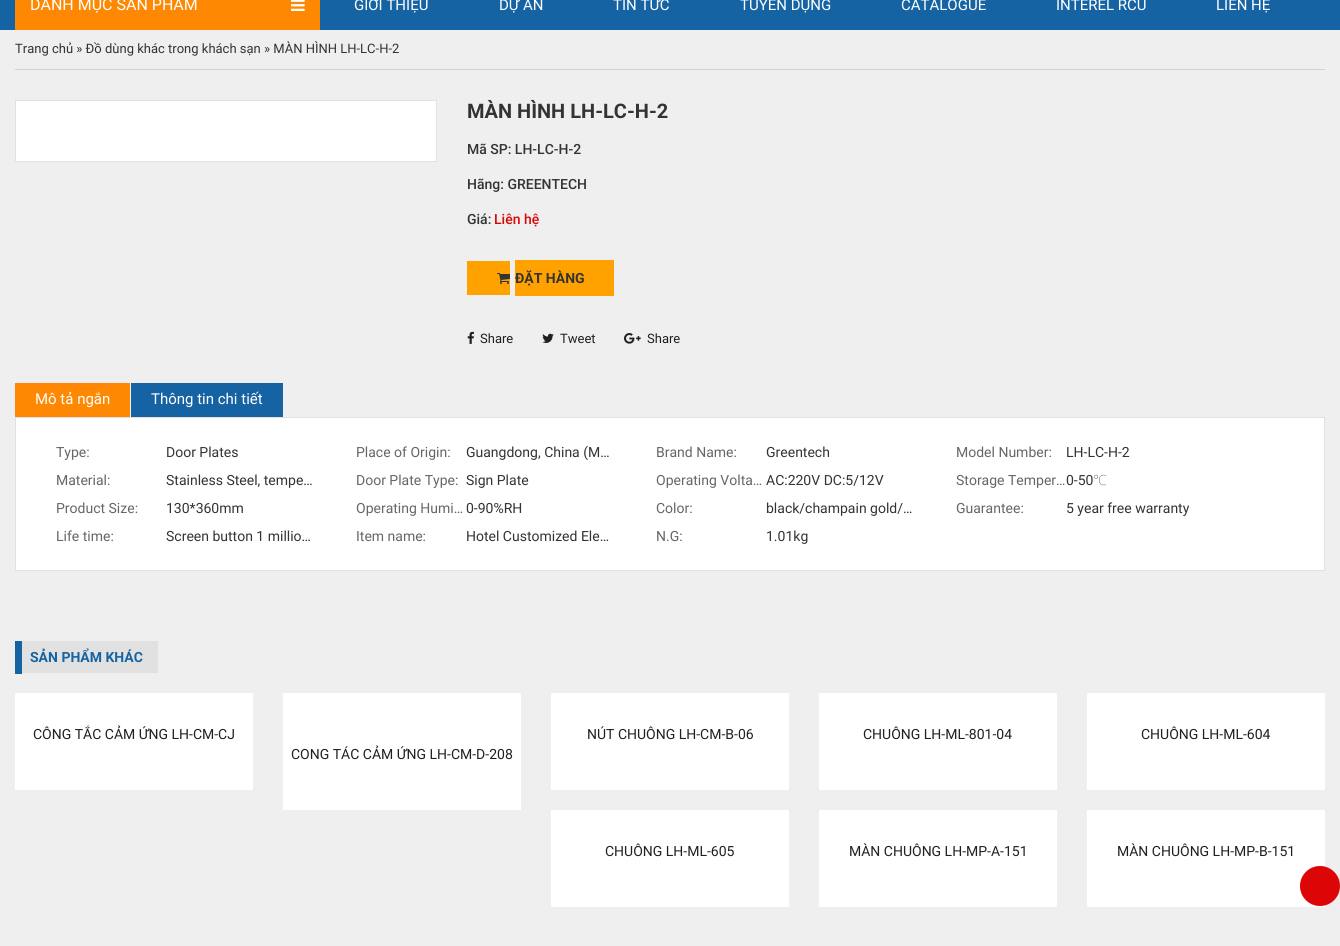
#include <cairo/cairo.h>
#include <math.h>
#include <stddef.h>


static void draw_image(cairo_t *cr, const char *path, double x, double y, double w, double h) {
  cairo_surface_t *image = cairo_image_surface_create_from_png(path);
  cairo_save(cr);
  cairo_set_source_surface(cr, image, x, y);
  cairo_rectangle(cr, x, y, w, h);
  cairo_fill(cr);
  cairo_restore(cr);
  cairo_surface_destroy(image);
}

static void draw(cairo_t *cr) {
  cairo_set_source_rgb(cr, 239 / 255.0, 239 / 255.0, 239 / 255.0);
  cairo_paint(cr);
  cairo_set_source_rgb(cr, 21 / 255.0, 99 / 255.0, 163 / 255.0);
  cairo_rectangle(cr, 0, 0, 1340, 30);
  cairo_fill(cr);
  cairo_set_source_rgb(cr, 254 / 255.0, 136 / 255.0, 2 / 255.0);
  cairo_rectangle(cr, 15, 0, 305, 30);
  cairo_fill(cr);
  draw_image(cr, "images/1.png", 291, 0, 14, 11);
  cairo_set_source_rgb(cr, 209 / 255.0, 209 / 255.0, 209 / 255.0);
  cairo_rectangle(cr, 15, 69, 1310, 1);
  cairo_fill(cr);
  cairo_set_source_rgb(cr, 1, 1, 1);
  cairo_rectangle(cr, 15.5, 100.5, 421, 61);
  cairo_fill_preserve(cr);
  cairo_set_source_rgb(cr, 225 / 255.0, 225 / 255.0, 225 / 255.0);
  cairo_set_line_width(cr, 1);
  cairo_stroke(cr);
  cairo_set_source_rgb(cr, 1, 162 / 255.0, 0);
  cairo_rectangle(cr, 467, 261, 43, 34);
  cairo_fill(cr);
  cairo_rectangle(cr, 515, 260, 99, 36);
  cairo_fill(cr);
  draw_image(cr, "images/2.png", 497, 273, 13, 11);
  draw_image(cr, "images/3.png", 467, 331, 7, 13);
  draw_image(cr, "images/4.png", 542, 333, 12, 10);
  draw_image(cr, "images/5.png", 624, 333, 17, 11);
  cairo_set_source_rgb(cr, 254 / 255.0, 136 / 255.0, 2 / 255.0);
  cairo_rectangle(cr, 15, 383, 115, 34);
  cairo_fill(cr);
  cairo_set_source_rgb(cr, 21 / 255.0, 99 / 255.0, 163 / 255.0);
  cairo_rectangle(cr, 131, 383, 152, 34);
  cairo_fill(cr);
  cairo_set_source_rgb(cr, 1, 1, 1);
  cairo_rectangle(cr, 15.5, 417.5, 1309, 153);
  cairo_fill_preserve(cr);
  cairo_set_source_rgb(cr, 225 / 255.0, 225 / 255.0, 225 / 255.0);
  cairo_stroke(cr);
  cairo_set_source_rgb(cr, 21 / 255.0, 99 / 255.0, 163 / 255.0);
  cairo_rectangle(cr, 15, 641, 7, 33);
  cairo_fill(cr);
  cairo_set_source_rgb(cr, 225 / 255.0, 225 / 255.0, 225 / 255.0);
  cairo_rectangle(cr, 22, 641, 136, 32);
  cairo_fill(cr);
  cairo_set_source_rgb(cr, 1, 1, 1);
  cairo_rectangle(cr, 15, 693, 238, 97);
  cairo_fill(cr);
  cairo_rectangle(cr, 551, 693, 238, 97);
  cairo_fill(cr);
  cairo_rectangle(cr, 819, 693, 238, 97);
  cairo_fill(cr);
  cairo_rectangle(cr, 1087, 693, 238, 97);
  cairo_fill(cr);
  cairo_rectangle(cr, 283, 693, 238, 117);
  cairo_fill(cr);
  cairo_rectangle(cr, 551, 810, 238, 97);
  cairo_fill(cr);
  cairo_rectangle(cr, 819, 810, 238, 97);
  cairo_fill(cr);
  cairo_rectangle(cr, 1087, 810, 238, 97);
  cairo_fill(cr);
  cairo_set_source_rgb(cr, 220 / 255.0, 6 / 255.0, 6 / 255.0);
  cairo_arc(cr, 1320, 886, 20, 0, 2 * M_PI);
  cairo_fill(cr);
  cairo_select_font_face(cr, "Roboto", CAIRO_FONT_SLANT_NORMAL, CAIRO_FONT_WEIGHT_NORMAL);
  cairo_set_font_size(cr, 16);
  cairo_set_source_rgb(cr, 1, 1, 1);
  cairo_move_to(cr, 30, 10);
  cairo_show_text(cr, "DANH MỤC SẢN PHẨM");
  cairo_set_font_size(cr, 15);
  cairo_move_to(cr, 354, 10);
  cairo_show_text(cr, "GIỚI THIỆU");
  cairo_move_to(cr, 499, 10);
  cairo_show_text(cr, "DỰ ÁN");
  cairo_move_to(cr, 613, 10);
  cairo_show_text(cr, "TIN TỨC");
  cairo_move_to(cr, 740, 10);
  cairo_show_text(cr, "TUYỂN DỤNG");
  cairo_move_to(cr, 901, 10);
  cairo_show_text(cr, "CATALOGUE");
  cairo_move_to(cr, 1056, 10);
  cairo_show_text(cr, "INTEREL RCU");
  cairo_move_to(cr, 1216, 10);
  cairo_show_text(cr, "LIÊN HỆ");
  cairo_set_font_size(cr, 13);
  cairo_set_source_rgb(cr, 51 / 255.0, 51 / 255.0, 51 / 255.0);
  cairo_move_to(cr, 15, 53);
  cairo_show_text(cr, "Trang chủ » Đồ dùng khác trong khách sạn » MÀN HÌNH LH-LC-H-2");
  cairo_select_font_face(cr, "Roboto", CAIRO_FONT_SLANT_NORMAL, CAIRO_FONT_WEIGHT_BOLD);
  cairo_set_font_size(cr, 20);
  cairo_move_to(cr, 467, 118);
  cairo_show_text(cr, "MÀN HÌNH LH-LC-H-2");
  cairo_select_font_face(cr, "Roboto Medium", CAIRO_FONT_SLANT_NORMAL, CAIRO_FONT_WEIGHT_NORMAL);
  cairo_set_font_size(cr, 14);
  cairo_move_to(cr, 467, 154);
  cairo_show_text(cr, "Mã SP: LH-LC-H-2");
  cairo_move_to(cr, 467, 189);
  cairo_show_text(cr, "Hãng: GREENTECH");
  cairo_move_to(cr, 467, 224);
  cairo_show_text(cr, "Giá:");
  cairo_set_source_rgb(cr, 220 / 255.0, 6 / 255.0, 6 / 255.0);
  cairo_move_to(cr, 494, 224);
  cairo_show_text(cr, "Liên hệ");
  cairo_select_font_face(cr, "Roboto", CAIRO_FONT_SLANT_NORMAL, CAIRO_FONT_WEIGHT_BOLD);
  cairo_set_source_rgb(cr, 51 / 255.0, 51 / 255.0, 51 / 255.0);
  cairo_move_to(cr, 515, 283);
  cairo_show_text(cr, "ĐẶT HÀNG");
  cairo_select_font_face(cr, "Roboto", CAIRO_FONT_SLANT_NORMAL, CAIRO_FONT_WEIGHT_NORMAL);
  cairo_set_font_size(cr, 13);
  cairo_set_source_rgb(cr, 35 / 255.0, 31 / 255.0, 32 / 255.0);
  cairo_move_to(cr, 480, 343);
  cairo_show_text(cr, "Share");
  cairo_move_to(cr, 560, 343);
  cairo_show_text(cr, "Tweet");
  cairo_move_to(cr, 647, 343);
  cairo_show_text(cr, "Share");
  cairo_set_font_size(cr, 15);
  cairo_set_source_rgb(cr, 1, 1, 1);
  cairo_move_to(cr, 35, 404);
  cairo_show_text(cr, "Mô tả ngắn");
  cairo_move_to(cr, 151, 404);
  cairo_show_text(cr, "Thông tin chi tiết");
  cairo_set_font_size(cr, 14);
  cairo_set_source_rgb(cr, 102 / 255.0, 102 / 255.0, 102 / 255.0);
  cairo_move_to(cr, 56, 457);
  cairo_show_text(cr, "Type:");
  cairo_set_source_rgb(cr, 51 / 255.0, 51 / 255.0, 51 / 255.0);
  cairo_move_to(cr, 166, 457);
  cairo_show_text(cr, "Door Plates");
  cairo_set_source_rgb(cr, 102 / 255.0, 102 / 255.0, 102 / 255.0);
  cairo_move_to(cr, 356, 457);
  cairo_show_text(cr, "Place of Origin:");
  cairo_set_source_rgb(cr, 51 / 255.0, 51 / 255.0, 51 / 255.0);
  cairo_move_to(cr, 466, 457);
  cairo_show_text(cr, "Guangdong, China (M…");
  cairo_set_source_rgb(cr, 102 / 255.0, 102 / 255.0, 102 / 255.0);
  cairo_move_to(cr, 656, 457);
  cairo_show_text(cr, "Brand Name:");
  cairo_set_source_rgb(cr, 51 / 255.0, 51 / 255.0, 51 / 255.0);
  cairo_move_to(cr, 766, 457);
  cairo_show_text(cr, "Greentech");
  cairo_set_source_rgb(cr, 102 / 255.0, 102 / 255.0, 102 / 255.0);
  cairo_move_to(cr, 956, 457);
  cairo_show_text(cr, "Model Number:");
  cairo_set_source_rgb(cr, 51 / 255.0, 51 / 255.0, 51 / 255.0);
  cairo_move_to(cr, 1066, 457);
  cairo_show_text(cr, "LH-LC-H-2");
  cairo_set_source_rgb(cr, 102 / 255.0, 102 / 255.0, 102 / 255.0);
  cairo_move_to(cr, 56, 485);
  cairo_show_text(cr, "Material:");
  cairo_set_source_rgb(cr, 51 / 255.0, 51 / 255.0, 51 / 255.0);
  cairo_move_to(cr, 166, 485);
  cairo_show_text(cr, "Stainless Steel, tempe…");
  cairo_set_source_rgb(cr, 102 / 255.0, 102 / 255.0, 102 / 255.0);
  cairo_move_to(cr, 356, 485);
  cairo_show_text(cr, "Door Plate Type:");
  cairo_set_source_rgb(cr, 51 / 255.0, 51 / 255.0, 51 / 255.0);
  cairo_move_to(cr, 466, 485);
  cairo_show_text(cr, "Sign Plate");
  cairo_set_source_rgb(cr, 102 / 255.0, 102 / 255.0, 102 / 255.0);
  cairo_move_to(cr, 656, 485);
  cairo_show_text(cr, "Operating Volta…");
  cairo_set_source_rgb(cr, 51 / 255.0, 51 / 255.0, 51 / 255.0);
  cairo_move_to(cr, 766, 485);
  cairo_show_text(cr, "AC:220V DC:5/12V");
  cairo_set_source_rgb(cr, 102 / 255.0, 102 / 255.0, 102 / 255.0);
  cairo_move_to(cr, 956, 485);
  cairo_show_text(cr, "Storage Temper…");
  cairo_set_source_rgb(cr, 51 / 255.0, 51 / 255.0, 51 / 255.0);
  cairo_move_to(cr, 1066, 485);
  cairo_show_text(cr, "0-50");
  cairo_select_font_face(cr, "Noto Sans Thin", CAIRO_FONT_SLANT_NORMAL, CAIRO_FONT_WEIGHT_NORMAL);
  cairo_move_to(cr, 1093, 485);
  cairo_show_text(cr, "℃");
  cairo_select_font_face(cr, "Roboto", CAIRO_FONT_SLANT_NORMAL, CAIRO_FONT_WEIGHT_NORMAL);
  cairo_set_source_rgb(cr, 102 / 255.0, 102 / 255.0, 102 / 255.0);
  cairo_move_to(cr, 56, 513);
  cairo_show_text(cr, "Product Size:");
  cairo_set_source_rgb(cr, 51 / 255.0, 51 / 255.0, 51 / 255.0);
  cairo_move_to(cr, 166, 513);
  cairo_show_text(cr, "130*360mm");
  cairo_set_source_rgb(cr, 102 / 255.0, 102 / 255.0, 102 / 255.0);
  cairo_move_to(cr, 356, 513);
  cairo_show_text(cr, "Operating Humi…");
  cairo_set_source_rgb(cr, 51 / 255.0, 51 / 255.0, 51 / 255.0);
  cairo_move_to(cr, 466, 513);
  cairo_show_text(cr, "0-90%RH");
  cairo_set_source_rgb(cr, 102 / 255.0, 102 / 255.0, 102 / 255.0);
  cairo_move_to(cr, 656, 513);
  cairo_show_text(cr, "Color:");
  cairo_set_source_rgb(cr, 51 / 255.0, 51 / 255.0, 51 / 255.0);
  cairo_move_to(cr, 766, 513);
  cairo_show_text(cr, "black/champain gold/…");
  cairo_set_source_rgb(cr, 102 / 255.0, 102 / 255.0, 102 / 255.0);
  cairo_move_to(cr, 956, 513);
  cairo_show_text(cr, "Guarantee:");
  cairo_set_source_rgb(cr, 51 / 255.0, 51 / 255.0, 51 / 255.0);
  cairo_move_to(cr, 1066, 513);
  cairo_show_text(cr, "5 year free warranty");
  cairo_set_source_rgb(cr, 102 / 255.0, 102 / 255.0, 102 / 255.0);
  cairo_move_to(cr, 56, 541);
  cairo_show_text(cr, "Life time:");
  cairo_set_source_rgb(cr, 51 / 255.0, 51 / 255.0, 51 / 255.0);
  cairo_move_to(cr, 166, 541);
  cairo_show_text(cr, "Screen button 1 millio…");
  cairo_set_source_rgb(cr, 102 / 255.0, 102 / 255.0, 102 / 255.0);
  cairo_move_to(cr, 356, 541);
  cairo_show_text(cr, "Item name:");
  cairo_set_source_rgb(cr, 51 / 255.0, 51 / 255.0, 51 / 255.0);
  cairo_move_to(cr, 466, 541);
  cairo_show_text(cr, "Hotel Customized Ele…");
  cairo_set_source_rgb(cr, 102 / 255.0, 102 / 255.0, 102 / 255.0);
  cairo_move_to(cr, 656, 541);
  cairo_show_text(cr, "N.G:");
  cairo_set_source_rgb(cr, 51 / 255.0, 51 / 255.0, 51 / 255.0);
  cairo_move_to(cr, 766, 541);
  cairo_show_text(cr, "1.01kg");
  cairo_select_font_face(cr, "Roboto", CAIRO_FONT_SLANT_NORMAL, CAIRO_FONT_WEIGHT_BOLD);
  cairo_set_source_rgb(cr, 21 / 255.0, 99 / 255.0, 163 / 255.0);
  cairo_move_to(cr, 30, 662);
  cairo_show_text(cr, "SẢN PHẨM KHÁC");
  cairo_select_font_face(cr, "Roboto", CAIRO_FONT_SLANT_NORMAL, CAIRO_FONT_WEIGHT_NORMAL);
  cairo_set_source_rgb(cr, 35 / 255.0, 31 / 255.0, 32 / 255.0);
  cairo_move_to(cr, 33, 739);
  cairo_show_text(cr, "CÔNG TẮC CẢM ỨNG LH-CM-CJ");
  cairo_move_to(cr, 587, 739);
  cairo_show_text(cr, "NÚT CHUÔNG LH-CM-B-06");
  cairo_move_to(cr, 863, 739);
  cairo_show_text(cr, "CHUÔNG LH-ML-801-04");
  cairo_move_to(cr, 1141, 739);
  cairo_show_text(cr, "CHUÔNG LH-ML-604");
  cairo_move_to(cr, 291, 759);
  cairo_show_text(cr, "CONG TÁC CẢM ỨNG LH-CM-D-208");
  cairo_move_to(cr, 605, 856);
  cairo_show_text(cr, "CHUÔNG LH-ML-605");
  cairo_move_to(cr, 849, 856);
  cairo_show_text(cr, "MÀN CHUÔNG LH-MP-A-151");
  cairo_move_to(cr, 1117, 856);
  cairo_show_text(cr, "MÀN CHUÔNG LH-MP-B-151");
}

int main(void) {
  cairo_surface_t *surface = cairo_image_surface_create(CAIRO_FORMAT_RGB24, 1340, 946);
  cairo_t *cr = cairo_create(surface);
  cairo_font_options_t *options = cairo_font_options_create();
  cairo_font_options_set_hint_metrics(options, CAIRO_HINT_METRICS_OFF);
  cairo_font_options_set_hint_style(options, CAIRO_HINT_STYLE_NONE);
  cairo_set_font_options(cr, options);
  cairo_set_miter_limit(cr, 4);
  draw(cr);
  cairo_surface_write_to_png(surface, "out.png");
  cairo_font_options_destroy(options);
  cairo_destroy(cr);
  cairo_surface_destroy(surface);
  return 0;
}
